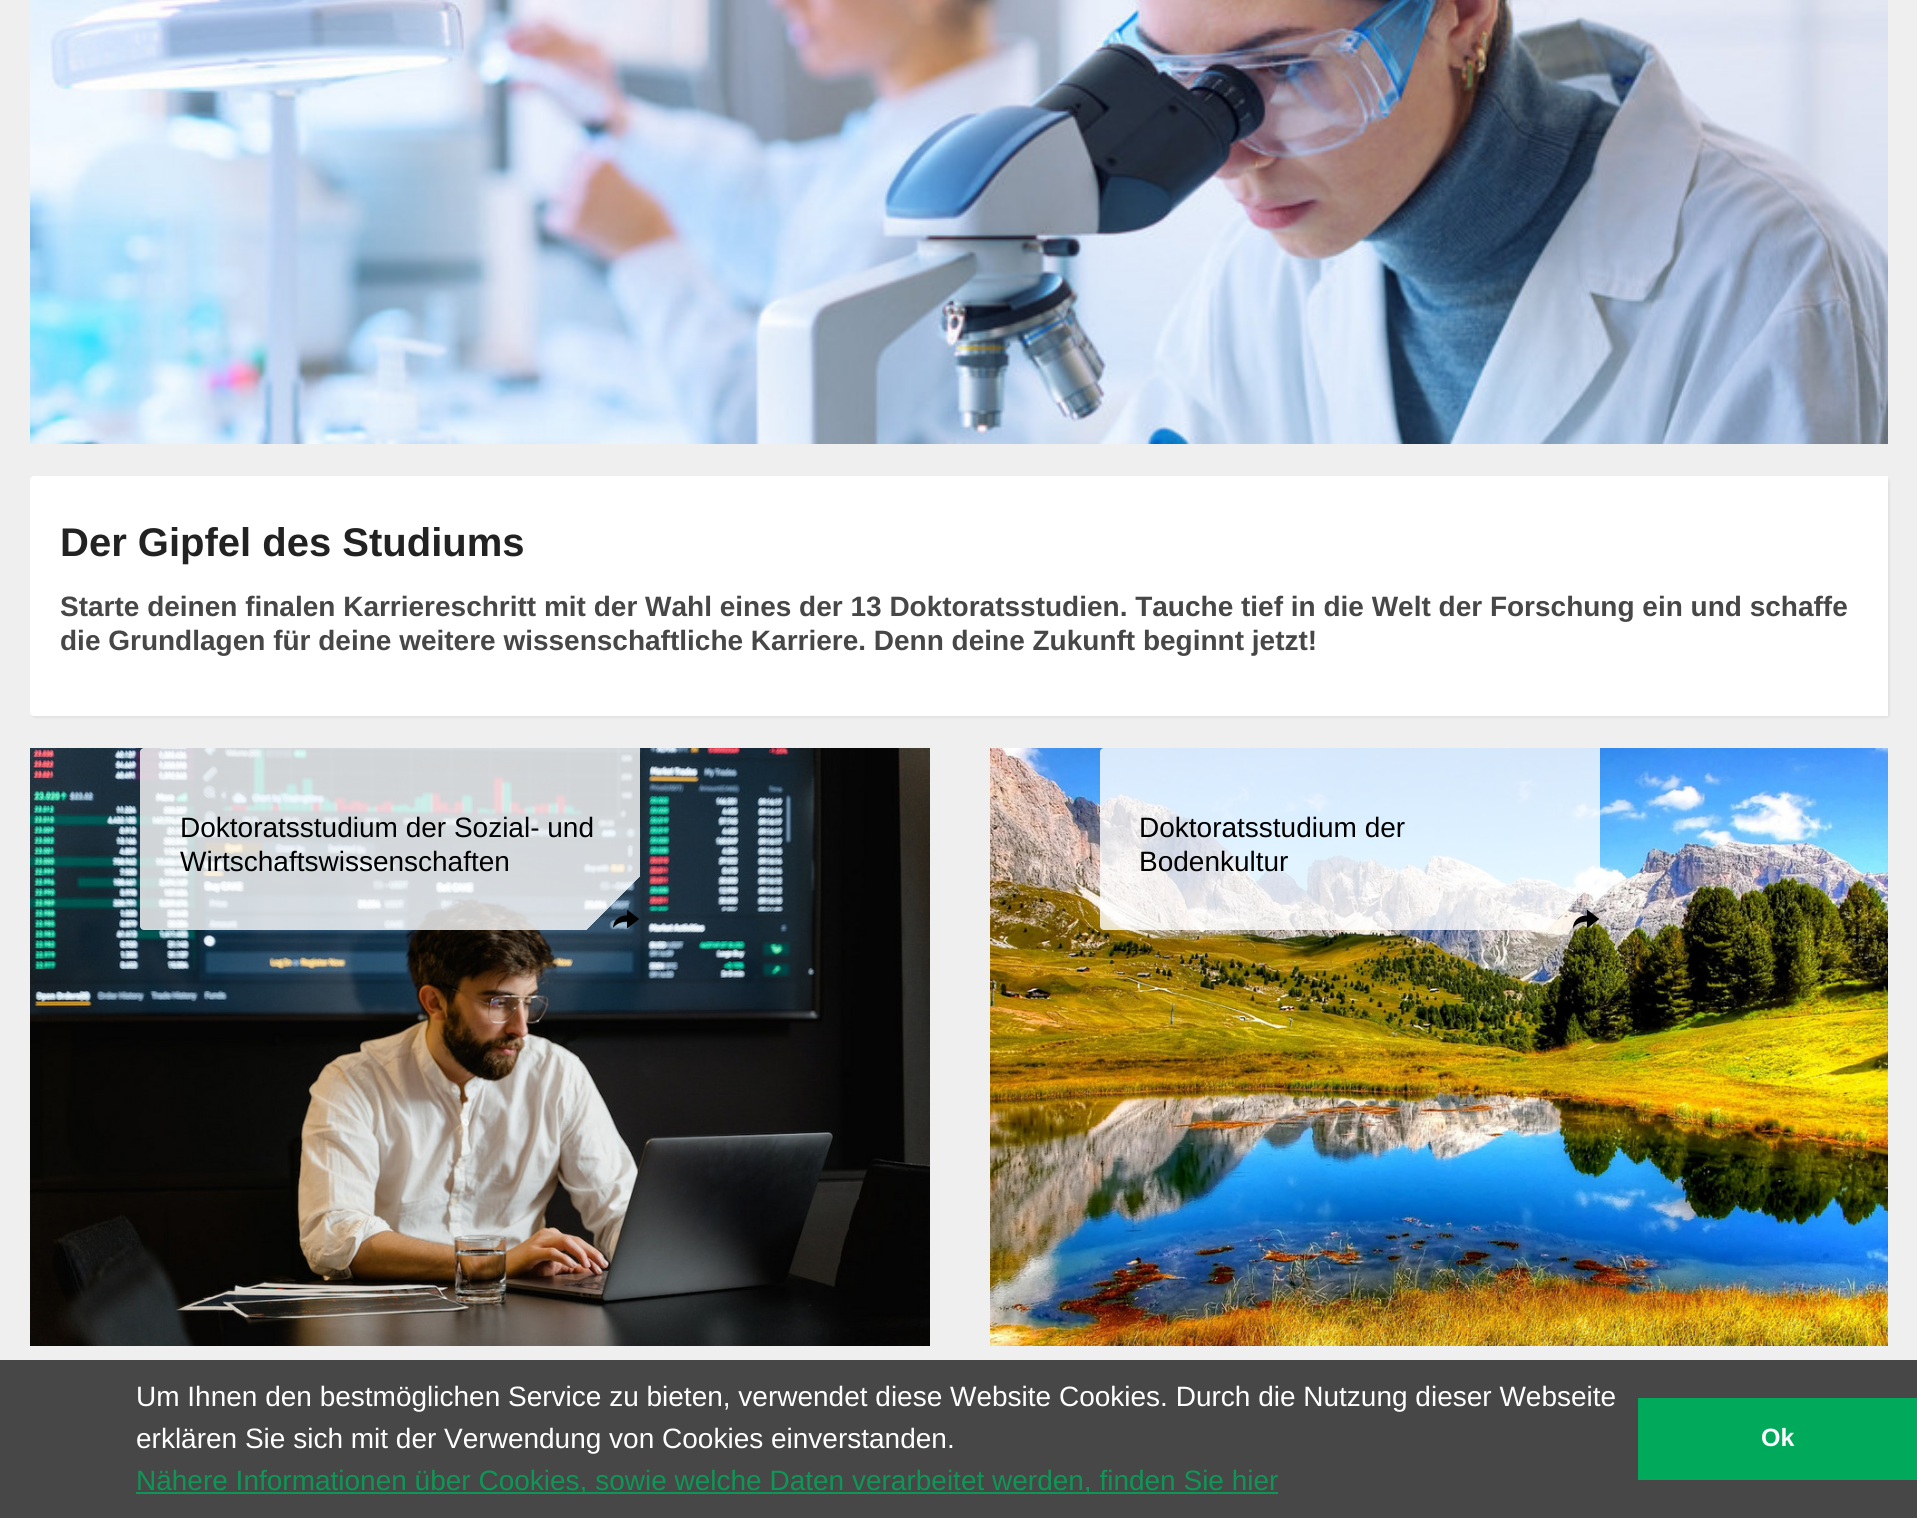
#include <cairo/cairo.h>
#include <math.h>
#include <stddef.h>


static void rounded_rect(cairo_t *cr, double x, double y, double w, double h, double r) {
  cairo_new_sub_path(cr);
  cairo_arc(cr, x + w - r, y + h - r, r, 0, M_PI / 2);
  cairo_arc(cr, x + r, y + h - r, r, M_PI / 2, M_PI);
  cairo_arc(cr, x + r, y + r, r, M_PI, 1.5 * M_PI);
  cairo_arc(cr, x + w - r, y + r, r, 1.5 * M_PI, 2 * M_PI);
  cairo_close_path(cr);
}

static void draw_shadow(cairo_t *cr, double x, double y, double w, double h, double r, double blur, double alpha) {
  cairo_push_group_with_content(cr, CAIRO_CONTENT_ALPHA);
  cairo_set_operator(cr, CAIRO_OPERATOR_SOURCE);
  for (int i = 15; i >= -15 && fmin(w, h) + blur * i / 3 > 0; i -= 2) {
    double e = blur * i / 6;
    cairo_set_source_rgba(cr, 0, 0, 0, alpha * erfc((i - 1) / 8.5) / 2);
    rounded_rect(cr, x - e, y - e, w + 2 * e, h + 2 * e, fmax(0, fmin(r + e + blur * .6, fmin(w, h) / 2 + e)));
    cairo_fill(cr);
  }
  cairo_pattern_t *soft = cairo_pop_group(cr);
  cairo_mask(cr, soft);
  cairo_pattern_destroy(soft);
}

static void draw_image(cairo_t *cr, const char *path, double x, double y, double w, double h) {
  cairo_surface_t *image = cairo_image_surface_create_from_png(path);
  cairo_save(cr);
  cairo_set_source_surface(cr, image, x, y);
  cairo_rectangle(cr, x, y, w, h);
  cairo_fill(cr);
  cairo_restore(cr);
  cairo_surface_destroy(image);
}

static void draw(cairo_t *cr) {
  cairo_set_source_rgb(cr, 239 / 255.0, 239 / 255.0, 239 / 255.0);
  cairo_paint(cr);
  draw_image(cr, "images/1.png", 30, 0, 1858, 444);
  cairo_set_source_rgb(cr, 0, 0, 0);
  draw_shadow(cr, 32, 478, 1858, 240, 4, 1, 0.06);
  cairo_set_source_rgb(cr, 1, 1, 1);
  cairo_new_path(cr);
  cairo_move_to(cr, 34, 476);
  cairo_line_to(cr, 1888, 476);
  cairo_line_to(cr, 1888, 716);
  cairo_line_to(cr, 34, 716);
  cairo_curve_to(cr, 32, 716, 30, 714, 30, 712);
  cairo_line_to(cr, 30, 480);
  cairo_curve_to(cr, 30, 478, 32, 476, 34, 476);
  cairo_close_path(cr);
  cairo_fill(cr);
  draw_image(cr, "images/2.png", 30, 748, 900, 598);
  draw_image(cr, "images/3.png", 613, 909, 26, 20);
  draw_image(cr, "images/4.png", 990, 748, 898, 598);
  draw_image(cr, "images/5.png", 1573, 909, 27, 20);
  cairo_set_source_rgb(cr, 71 / 255.0, 71 / 255.0, 71 / 255.0);
  cairo_rectangle(cr, 0, 1360, 1917, 158);
  cairo_fill(cr);
  cairo_set_source_rgb(cr, 14 / 255.0, 150 / 255.0, 86 / 255.0);
  cairo_rectangle(cr, 136, 1492, 1142, 2);
  cairo_fill(cr);
  cairo_set_source_rgb(cr, 0, 170 / 255.0, 90 / 255.0);
  cairo_rectangle(cr, 1638, 1398, 279, 82);
  cairo_fill(cr);
  cairo_select_font_face(cr, "Liberation Sans", CAIRO_FONT_SLANT_NORMAL, CAIRO_FONT_WEIGHT_BOLD);
  cairo_set_font_size(cr, 40);
  cairo_set_source_rgb(cr, 34 / 255.0, 34 / 255.0, 34 / 255.0);
  cairo_move_to(cr, 60, 556);
  cairo_show_text(cr, "Der Gipfel des Studiums");
  cairo_set_font_size(cr, 28);
  cairo_set_source_rgb(cr, 71 / 255.0, 71 / 255.0, 71 / 255.0);
  cairo_move_to(cr, 60, 616);
  cairo_show_text(cr, "Starte deinen finalen Karriereschritt mit der Wahl eines der 13 Doktoratsstudien. Tauche tief in die Welt der Forschung ein und schaffe");
  cairo_move_to(cr, 60, 650);
  cairo_show_text(cr, "die Grundlagen für deine weitere wissenschaftliche Karriere. Denn deine Zukunft beginnt jetzt!");
  cairo_select_font_face(cr, "Liberation Sans", CAIRO_FONT_SLANT_NORMAL, CAIRO_FONT_WEIGHT_NORMAL);
  cairo_set_source_rgb(cr, 0, 0, 0);
  cairo_move_to(cr, 180, 837);
  cairo_show_text(cr, "Doktoratsstudium der Sozial- und");
  cairo_move_to(cr, 180, 871);
  cairo_show_text(cr, "Wirtschaftswissenschaften");
  cairo_move_to(cr, 1139, 837);
  cairo_show_text(cr, "Doktoratsstudium der");
  cairo_move_to(cr, 1139, 871);
  cairo_show_text(cr, "Bodenkultur");
  cairo_set_source_rgb(cr, 1, 1, 1);
  cairo_move_to(cr, 136, 1406);
  cairo_show_text(cr, "Um Ihnen den bestmöglichen Service zu bieten, verwendet diese Website Cookies. Durch die Nutzung dieser Webseite");
  cairo_move_to(cr, 136, 1448);
  cairo_show_text(cr, "erklären Sie sich mit der Verwendung von Cookies einverstanden.");
  cairo_set_source_rgb(cr, 14 / 255.0, 150 / 255.0, 86 / 255.0);
  cairo_move_to(cr, 136, 1490);
  cairo_show_text(cr, "Nähere Informationen über Cookies, sowie welche Daten verarbeitet werden, finden Sie hier");
  cairo_select_font_face(cr, "Liberation Sans", CAIRO_FONT_SLANT_NORMAL, CAIRO_FONT_WEIGHT_BOLD);
  cairo_set_font_size(cr, 25);
  cairo_set_source_rgb(cr, 1, 1, 1);
  cairo_move_to(cr, 1761, 1446);
  cairo_show_text(cr, "Ok");
}

int main(void) {
  cairo_surface_t *surface = cairo_image_surface_create(CAIRO_FORMAT_RGB24, 1917, 1518);
  cairo_t *cr = cairo_create(surface);
  cairo_font_options_t *options = cairo_font_options_create();
  cairo_font_options_set_hint_metrics(options, CAIRO_HINT_METRICS_OFF);
  cairo_font_options_set_hint_style(options, CAIRO_HINT_STYLE_NONE);
  cairo_set_font_options(cr, options);
  cairo_set_miter_limit(cr, 4);
  draw(cr);
  cairo_surface_write_to_png(surface, "out.png");
  cairo_font_options_destroy(options);
  cairo_destroy(cr);
  cairo_surface_destroy(surface);
  return 0;
}
